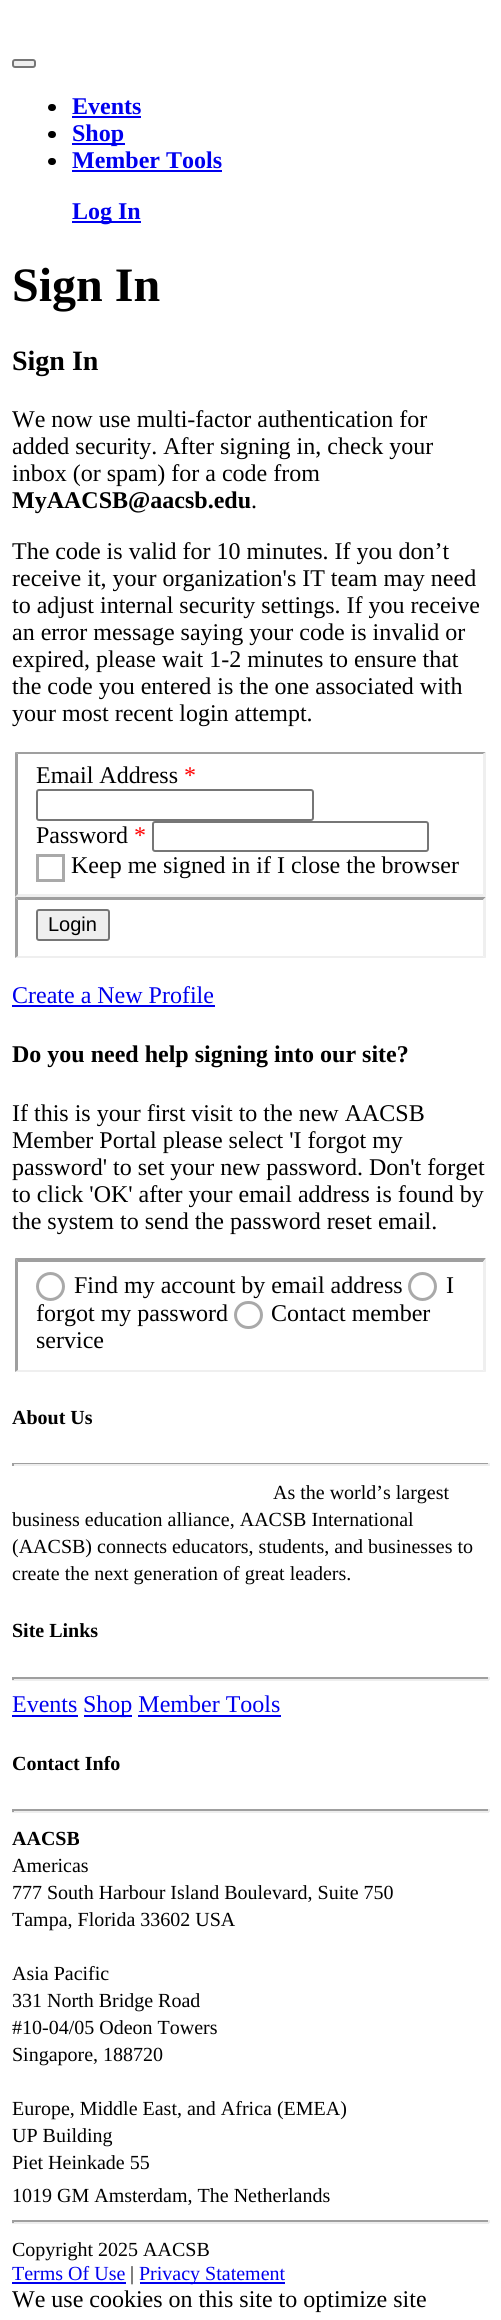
#include <cairo/cairo.h>
#include <math.h>
#include <stddef.h>


static void rounded_rect(cairo_t *cr, double x, double y, double w, double h, double r) {
  cairo_new_sub_path(cr);
  cairo_arc(cr, x + w - r, y + h - r, r, 0, M_PI / 2);
  cairo_arc(cr, x + r, y + h - r, r, M_PI / 2, M_PI);
  cairo_arc(cr, x + r, y + r, r, M_PI, 1.5 * M_PI);
  cairo_arc(cr, x + w - r, y + r, r, 1.5 * M_PI, 2 * M_PI);
  cairo_close_path(cr);
}

static void draw(cairo_t *cr) {
  cairo_set_source_rgb(cr, 1, 1, 1);
  cairo_paint(cr);
  cairo_set_source_rgb(cr, 239 / 255.0, 239 / 255.0, 239 / 255.0);
  rounded_rect(cr, 13, 60, 22, 7, 2);
  cairo_fill_preserve(cr);
  cairo_set_source_rgb(cr, 118 / 255.0, 118 / 255.0, 118 / 255.0);
  cairo_stroke(cr);
  cairo_set_source_rgb(cr, 0, 0, 0);
  rounded_rect(cr, 48, 104, 8, 7, 3.5);
  cairo_fill(cr);
  cairo_set_source_rgb(cr, 0, 0, 238 / 255.0);
  cairo_rectangle(cr, 72, 116, 69, 2);
  cairo_fill(cr);
  cairo_set_source_rgb(cr, 0, 0, 0);
  rounded_rect(cr, 48, 131, 8, 7, 3.5);
  cairo_fill(cr);
  cairo_set_source_rgb(cr, 0, 0, 238 / 255.0);
  cairo_rectangle(cr, 72, 143, 53, 2);
  cairo_fill(cr);
  cairo_set_source_rgb(cr, 0, 0, 0);
  rounded_rect(cr, 48, 158, 8, 7, 3.5);
  cairo_fill(cr);
  cairo_set_source_rgb(cr, 0, 0, 238 / 255.0);
  cairo_rectangle(cr, 72, 170, 150, 2);
  cairo_fill(cr);
  cairo_rectangle(cr, 72, 221, 69, 2);
  cairo_fill(cr);
  cairo_set_source_rgb(cr, 159 / 255.0, 159 / 255.0, 159 / 255.0);
  cairo_new_path(cr);
  cairo_move_to(cr, 15, 752);
  cairo_line_to(cr, 486, 752);
  cairo_line_to(cr, 483, 754);
  cairo_line_to(cr, 18, 754);
  cairo_close_path(cr);
  cairo_fill(cr);
  cairo_set_source_rgb(cr, 239 / 255.0, 239 / 255.0, 239 / 255.0);
  cairo_new_path(cr);
  cairo_move_to(cr, 486, 752);
  cairo_line_to(cr, 486, 897);
  cairo_line_to(cr, 483, 894);
  cairo_line_to(cr, 483, 754);
  cairo_close_path(cr);
  cairo_fill(cr);
  cairo_new_path(cr);
  cairo_move_to(cr, 486, 897);
  cairo_line_to(cr, 15, 897);
  cairo_line_to(cr, 18, 894);
  cairo_line_to(cr, 483, 894);
  cairo_close_path(cr);
  cairo_fill(cr);
  cairo_set_source_rgb(cr, 159 / 255.0, 159 / 255.0, 159 / 255.0);
  cairo_new_path(cr);
  cairo_move_to(cr, 15, 897);
  cairo_line_to(cr, 15, 752);
  cairo_line_to(cr, 18, 754);
  cairo_line_to(cr, 18, 894);
  cairo_close_path(cr);
  cairo_fill(cr);
  rounded_rect(cr, 37, 790, 276, 30, 2);
  cairo_set_source_rgb(cr, 118 / 255.0, 118 / 255.0, 118 / 255.0);
  cairo_stroke(cr);
  rounded_rect(cr, 153, 822, 275, 29, 2);
  cairo_stroke(cr);
  cairo_rectangle(cr, 37.5, 855.5, 26, 25);
  cairo_set_source_rgb(cr, 169 / 255.0, 169 / 255.0, 169 / 255.0);
  cairo_set_line_width(cr, 3);
  cairo_stroke(cr);
  cairo_set_source_rgb(cr, 159 / 255.0, 159 / 255.0, 159 / 255.0);
  cairo_new_path(cr);
  cairo_move_to(cr, 15, 897);
  cairo_line_to(cr, 486, 897);
  cairo_line_to(cr, 483, 900);
  cairo_line_to(cr, 18, 900);
  cairo_close_path(cr);
  cairo_fill(cr);
  cairo_set_source_rgb(cr, 239 / 255.0, 239 / 255.0, 239 / 255.0);
  cairo_new_path(cr);
  cairo_move_to(cr, 486, 897);
  cairo_line_to(cr, 486, 958);
  cairo_line_to(cr, 483, 956);
  cairo_line_to(cr, 483, 900);
  cairo_close_path(cr);
  cairo_fill(cr);
  cairo_new_path(cr);
  cairo_move_to(cr, 486, 958);
  cairo_line_to(cr, 15, 958);
  cairo_line_to(cr, 18, 956);
  cairo_line_to(cr, 483, 956);
  cairo_close_path(cr);
  cairo_fill(cr);
  cairo_set_source_rgb(cr, 159 / 255.0, 159 / 255.0, 159 / 255.0);
  cairo_new_path(cr);
  cairo_move_to(cr, 15, 958);
  cairo_line_to(cr, 15, 897);
  cairo_line_to(cr, 18, 900);
  cairo_line_to(cr, 18, 956);
  cairo_close_path(cr);
  cairo_fill(cr);
  cairo_set_source_rgb(cr, 239 / 255.0, 239 / 255.0, 239 / 255.0);
  rounded_rect(cr, 37, 910, 72, 30, 2);
  cairo_fill_preserve(cr);
  cairo_set_source_rgb(cr, 118 / 255.0, 118 / 255.0, 118 / 255.0);
  cairo_set_line_width(cr, 2);
  cairo_stroke(cr);
  cairo_set_source_rgb(cr, 0, 0, 238 / 255.0);
  cairo_rectangle(cr, 12, 1005, 203, 2);
  cairo_fill(cr);
  cairo_set_source_rgb(cr, 159 / 255.0, 159 / 255.0, 159 / 255.0);
  cairo_new_path(cr);
  cairo_move_to(cr, 15, 1258);
  cairo_line_to(cr, 486, 1258);
  cairo_line_to(cr, 483, 1262);
  cairo_line_to(cr, 18, 1262);
  cairo_close_path(cr);
  cairo_fill(cr);
  cairo_set_source_rgb(cr, 239 / 255.0, 239 / 255.0, 239 / 255.0);
  cairo_new_path(cr);
  cairo_move_to(cr, 486, 1258);
  cairo_line_to(cr, 486, 1372);
  cairo_line_to(cr, 483, 1370);
  cairo_line_to(cr, 483, 1262);
  cairo_close_path(cr);
  cairo_fill(cr);
  cairo_new_path(cr);
  cairo_move_to(cr, 486, 1372);
  cairo_line_to(cr, 15, 1372);
  cairo_line_to(cr, 18, 1370);
  cairo_line_to(cr, 483, 1370);
  cairo_close_path(cr);
  cairo_fill(cr);
  cairo_set_source_rgb(cr, 159 / 255.0, 159 / 255.0, 159 / 255.0);
  cairo_new_path(cr);
  cairo_move_to(cr, 15, 1372);
  cairo_line_to(cr, 15, 1258);
  cairo_line_to(cr, 18, 1262);
  cairo_line_to(cr, 18, 1370);
  cairo_close_path(cr);
  cairo_fill(cr);
  cairo_arc(cr, 50.5, 1286.5, 13, 0, 2 * M_PI);
  cairo_set_source_rgb(cr, 169 / 255.0, 169 / 255.0, 169 / 255.0);
  cairo_set_line_width(cr, 3);
  cairo_stroke(cr);
  cairo_arc(cr, 422.5, 1286.5, 13, 0, 2 * M_PI);
  cairo_stroke(cr);
  rounded_rect(cr, 235.5, 1302.5, 26, 25, 12.5);
  cairo_stroke(cr);
  cairo_set_source_rgb(cr, 159 / 255.0, 159 / 255.0, 159 / 255.0);
  cairo_rectangle(cr, 12, 1463, 477, 1);
  cairo_fill(cr);
  cairo_set_source_rgb(cr, 238 / 255.0, 238 / 255.0, 238 / 255.0);
  cairo_rectangle(cr, 488, 1463, 2, 3);
  cairo_fill(cr);
  cairo_rectangle(cr, 12, 1464, 477, 2);
  cairo_fill(cr);
  cairo_set_source_rgb(cr, 159 / 255.0, 159 / 255.0, 159 / 255.0);
  cairo_rectangle(cr, 12, 1463, 2, 3);
  cairo_fill(cr);
  cairo_rectangle(cr, 12, 1677, 477, 2);
  cairo_fill(cr);
  cairo_set_source_rgb(cr, 238 / 255.0, 238 / 255.0, 238 / 255.0);
  cairo_rectangle(cr, 488, 1677, 2, 3);
  cairo_fill(cr);
  cairo_rectangle(cr, 12, 1679, 477, 2);
  cairo_fill(cr);
  cairo_set_source_rgb(cr, 159 / 255.0, 159 / 255.0, 159 / 255.0);
  cairo_rectangle(cr, 12, 1677, 2, 3);
  cairo_fill(cr);
  cairo_set_source_rgb(cr, 0, 0, 238 / 255.0);
  cairo_rectangle(cr, 12, 1715, 66, 2);
  cairo_fill(cr);
  cairo_rectangle(cr, 84, 1715, 48, 2);
  cairo_fill(cr);
  cairo_rectangle(cr, 138, 1715, 143, 2);
  cairo_fill(cr);
  cairo_set_source_rgb(cr, 159 / 255.0, 159 / 255.0, 159 / 255.0);
  cairo_rectangle(cr, 12, 1809, 477, 2);
  cairo_fill(cr);
  cairo_set_source_rgb(cr, 238 / 255.0, 238 / 255.0, 238 / 255.0);
  cairo_rectangle(cr, 488, 1809, 2, 3);
  cairo_fill(cr);
  cairo_rectangle(cr, 12, 1811, 477, 2);
  cairo_fill(cr);
  cairo_set_source_rgb(cr, 159 / 255.0, 159 / 255.0, 159 / 255.0);
  cairo_rectangle(cr, 12, 1809, 2, 3);
  cairo_fill(cr);
  cairo_rectangle(cr, 12, 2220, 477, 2);
  cairo_fill(cr);
  cairo_set_source_rgb(cr, 238 / 255.0, 238 / 255.0, 238 / 255.0);
  cairo_rectangle(cr, 488, 2220, 2, 3);
  cairo_fill(cr);
  cairo_rectangle(cr, 12, 2222, 477, 2);
  cairo_fill(cr);
  cairo_set_source_rgb(cr, 159 / 255.0, 159 / 255.0, 159 / 255.0);
  cairo_rectangle(cr, 12, 2220, 2, 3);
  cairo_fill(cr);
  cairo_set_source_rgb(cr, 0, 0, 238 / 255.0);
  cairo_rectangle(cr, 12, 2282, 114, 2);
  cairo_fill(cr);
  cairo_rectangle(cr, 140, 2282, 145, 2);
  cairo_fill(cr);
  cairo_select_font_face(cr, "Liberation Serif", CAIRO_FONT_SLANT_NORMAL, CAIRO_FONT_WEIGHT_BOLD);
  cairo_set_font_size(cr, 24);
  cairo_move_to(cr, 72, 114);
  cairo_show_text(cr, "Events");
  cairo_move_to(cr, 72, 141);
  cairo_show_text(cr, "Shop");
  cairo_move_to(cr, 72, 168);
  cairo_show_text(cr, "Member Tools");
  cairo_move_to(cr, 72, 219);
  cairo_show_text(cr, "Log In");
  cairo_set_font_size(cr, 48);
  cairo_set_source_rgb(cr, 0, 0, 0);
  cairo_move_to(cr, 12, 301);
  cairo_show_text(cr, "Sign In");
  cairo_set_font_size(cr, 28);
  cairo_move_to(cr, 12, 370);
  cairo_show_text(cr, "Sign In");
  cairo_select_font_face(cr, "Liberation Serif", CAIRO_FONT_SLANT_NORMAL, CAIRO_FONT_WEIGHT_NORMAL);
  cairo_set_font_size(cr, 24);
  cairo_move_to(cr, 12, 427);
  cairo_show_text(cr, "We now use multi-factor authentication for");
  cairo_move_to(cr, 12, 454);
  cairo_show_text(cr, "added security. After signing in, check your");
  cairo_move_to(cr, 12, 481);
  cairo_show_text(cr, "inbox (or spam) for a code from");
  cairo_select_font_face(cr, "Liberation Serif", CAIRO_FONT_SLANT_NORMAL, CAIRO_FONT_WEIGHT_BOLD);
  cairo_move_to(cr, 12, 508);
  cairo_show_text(cr, "MyAACSB@aacsb.edu");
  cairo_select_font_face(cr, "Liberation Serif", CAIRO_FONT_SLANT_NORMAL, CAIRO_FONT_WEIGHT_NORMAL);
  cairo_move_to(cr, 251, 508);
  cairo_show_text(cr, ".");
  cairo_move_to(cr, 12, 559);
  cairo_show_text(cr, "The code is valid for 10 minutes. If you don’t");
  cairo_move_to(cr, 12, 586);
  cairo_show_text(cr, "receive it, your organization's IT team may need");
  cairo_move_to(cr, 12, 613);
  cairo_show_text(cr, "to adjust internal security settings. If you receive");
  cairo_move_to(cr, 12, 640);
  cairo_show_text(cr, "an error message saying your code is invalid or");
  cairo_move_to(cr, 12, 667);
  cairo_show_text(cr, "expired, please wait 1-2 minutes to ensure that");
  cairo_move_to(cr, 12, 694);
  cairo_show_text(cr, "the code you entered is the one associated with");
  cairo_move_to(cr, 12, 721);
  cairo_show_text(cr, "your most recent login attempt.");
  cairo_move_to(cr, 36, 783);
  cairo_show_text(cr, "Email Address");
  cairo_set_source_rgb(cr, 1, 0, 0);
  cairo_move_to(cr, 184, 783);
  cairo_show_text(cr, "*");
  cairo_set_source_rgb(cr, 0, 0, 0);
  cairo_move_to(cr, 36, 843);
  cairo_show_text(cr, "Password");
  cairo_set_source_rgb(cr, 1, 0, 0);
  cairo_move_to(cr, 134, 843);
  cairo_show_text(cr, "*");
  cairo_set_source_rgb(cr, 0, 0, 0);
  cairo_move_to(cr, 71, 873);
  cairo_show_text(cr, "Keep me signed in if I close the browser");
  cairo_select_font_face(cr, "Liberation Sans", CAIRO_FONT_SLANT_NORMAL, CAIRO_FONT_WEIGHT_NORMAL);
  cairo_set_font_size(cr, 20);
  cairo_move_to(cr, 48, 931);
  cairo_show_text(cr, "Login");
  cairo_select_font_face(cr, "Liberation Serif", CAIRO_FONT_SLANT_NORMAL, CAIRO_FONT_WEIGHT_NORMAL);
  cairo_set_font_size(cr, 24);
  cairo_set_source_rgb(cr, 0, 0, 238 / 255.0);
  cairo_move_to(cr, 12, 1003);
  cairo_show_text(cr, "Create a New Profile");
  cairo_select_font_face(cr, "Liberation Serif", CAIRO_FONT_SLANT_NORMAL, CAIRO_FONT_WEIGHT_BOLD);
  cairo_set_source_rgb(cr, 0, 0, 0);
  cairo_move_to(cr, 12, 1062);
  cairo_show_text(cr, "Do you need help signing into our site?");
  cairo_select_font_face(cr, "Liberation Serif", CAIRO_FONT_SLANT_NORMAL, CAIRO_FONT_WEIGHT_NORMAL);
  cairo_move_to(cr, 12, 1121);
  cairo_show_text(cr, "If this is your first visit to the new AACSB");
  cairo_move_to(cr, 12, 1148);
  cairo_show_text(cr, "Member Portal please select 'I forgot my");
  cairo_move_to(cr, 12, 1175);
  cairo_show_text(cr, "password' to set your new password. Don't forget");
  cairo_move_to(cr, 12, 1202);
  cairo_show_text(cr, "to click 'OK' after your email address is found by");
  cairo_move_to(cr, 12, 1229);
  cairo_show_text(cr, "the system to send the password reset email.");
  cairo_move_to(cr, 74, 1293);
  cairo_show_text(cr, "Find my account by email address");
  cairo_move_to(cr, 446, 1293);
  cairo_show_text(cr, "I");
  cairo_move_to(cr, 36, 1321);
  cairo_show_text(cr, "forgot my password");
  cairo_move_to(cr, 271, 1321);
  cairo_show_text(cr, "Contact member");
  cairo_move_to(cr, 36, 1348);
  cairo_show_text(cr, "service");
  cairo_select_font_face(cr, "Liberation Serif", CAIRO_FONT_SLANT_NORMAL, CAIRO_FONT_WEIGHT_BOLD);
  cairo_set_font_size(cr, 20);
  cairo_move_to(cr, 12, 1424);
  cairo_show_text(cr, "About Us");
  cairo_select_font_face(cr, "Liberation Serif", CAIRO_FONT_SLANT_NORMAL, CAIRO_FONT_WEIGHT_NORMAL);
  cairo_move_to(cr, 273, 1499);
  cairo_show_text(cr, "As the world’s largest");
  cairo_move_to(cr, 12, 1526);
  cairo_show_text(cr, "business education alliance, AACSB International");
  cairo_move_to(cr, 12, 1553);
  cairo_show_text(cr, "(AACSB) connects educators, students, and businesses to");
  cairo_move_to(cr, 12, 1580);
  cairo_show_text(cr, "create the next generation of great leaders.");
  cairo_select_font_face(cr, "Liberation Serif", CAIRO_FONT_SLANT_NORMAL, CAIRO_FONT_WEIGHT_BOLD);
  cairo_move_to(cr, 12, 1637);
  cairo_show_text(cr, "Site Links");
  cairo_select_font_face(cr, "Liberation Serif", CAIRO_FONT_SLANT_NORMAL, CAIRO_FONT_WEIGHT_NORMAL);
  cairo_set_font_size(cr, 24);
  cairo_set_source_rgb(cr, 0, 0, 238 / 255.0);
  cairo_move_to(cr, 12, 1712);
  cairo_show_text(cr, "Events");
  cairo_move_to(cr, 83, 1712);
  cairo_show_text(cr, "Shop Member Tools");
  cairo_select_font_face(cr, "Liberation Serif", CAIRO_FONT_SLANT_NORMAL, CAIRO_FONT_WEIGHT_BOLD);
  cairo_set_font_size(cr, 20);
  cairo_set_source_rgb(cr, 0, 0, 0);
  cairo_move_to(cr, 12, 1770);
  cairo_show_text(cr, "Contact Info");
  cairo_move_to(cr, 12, 1845);
  cairo_show_text(cr, "AACSB");
  cairo_select_font_face(cr, "Liberation Serif", CAIRO_FONT_SLANT_NORMAL, CAIRO_FONT_WEIGHT_NORMAL);
  cairo_move_to(cr, 12, 1872);
  cairo_show_text(cr, "Americas");
  cairo_move_to(cr, 12, 1899);
  cairo_show_text(cr, "777 South Harbour Island Boulevard, Suite 750");
  cairo_move_to(cr, 12, 1926);
  cairo_show_text(cr, "Tampa, Florida 33602 USA");
  cairo_move_to(cr, 12, 1980);
  cairo_show_text(cr, "Asia Pacific");
  cairo_move_to(cr, 12, 2007);
  cairo_show_text(cr, "331 North Bridge Road");
  cairo_move_to(cr, 12, 2034);
  cairo_show_text(cr, "#10-04/05 Odeon Towers");
  cairo_move_to(cr, 12, 2061);
  cairo_show_text(cr, "Singapore, 188720");
  cairo_move_to(cr, 12, 2115);
  cairo_show_text(cr, "Europe, Middle East, and Africa (EMEA)");
  cairo_move_to(cr, 12, 2142);
  cairo_show_text(cr, "UP Building");
  cairo_move_to(cr, 12, 2169);
  cairo_show_text(cr, "Piet Heinkade 55");
  cairo_move_to(cr, 12, 2202);
  cairo_show_text(cr, "1019 GM Amsterdam, The Netherlands");
  cairo_move_to(cr, 12, 2256);
  cairo_show_text(cr, "Copyright 2025 AACSB");
  cairo_set_source_rgb(cr, 0, 0, 238 / 255.0);
  cairo_move_to(cr, 12, 2280);
  cairo_show_text(cr, "Terms Of Use");
  cairo_set_source_rgb(cr, 0, 0, 0);
  cairo_move_to(cr, 130, 2280);
  cairo_show_text(cr, "|");
  cairo_set_source_rgb(cr, 0, 0, 238 / 255.0);
  cairo_move_to(cr, 139, 2280);
  cairo_show_text(cr, "Privacy Statement");
  cairo_set_font_size(cr, 24);
  cairo_set_source_rgb(cr, 0, 0, 0);
  cairo_move_to(cr, 12, 2307);
  cairo_show_text(cr, "We use cookies on this site to optimize site");
}

int main(void) {
  cairo_surface_t *surface = cairo_image_surface_create(CAIRO_FORMAT_RGB24, 501, 2320);
  cairo_t *cr = cairo_create(surface);
  cairo_font_options_t *options = cairo_font_options_create();
  cairo_font_options_set_hint_metrics(options, CAIRO_HINT_METRICS_OFF);
  cairo_font_options_set_hint_style(options, CAIRO_HINT_STYLE_NONE);
  cairo_set_font_options(cr, options);
  cairo_set_miter_limit(cr, 4);
  draw(cr);
  cairo_surface_write_to_png(surface, "out.png");
  cairo_font_options_destroy(options);
  cairo_destroy(cr);
  cairo_surface_destroy(surface);
  return 0;
}
